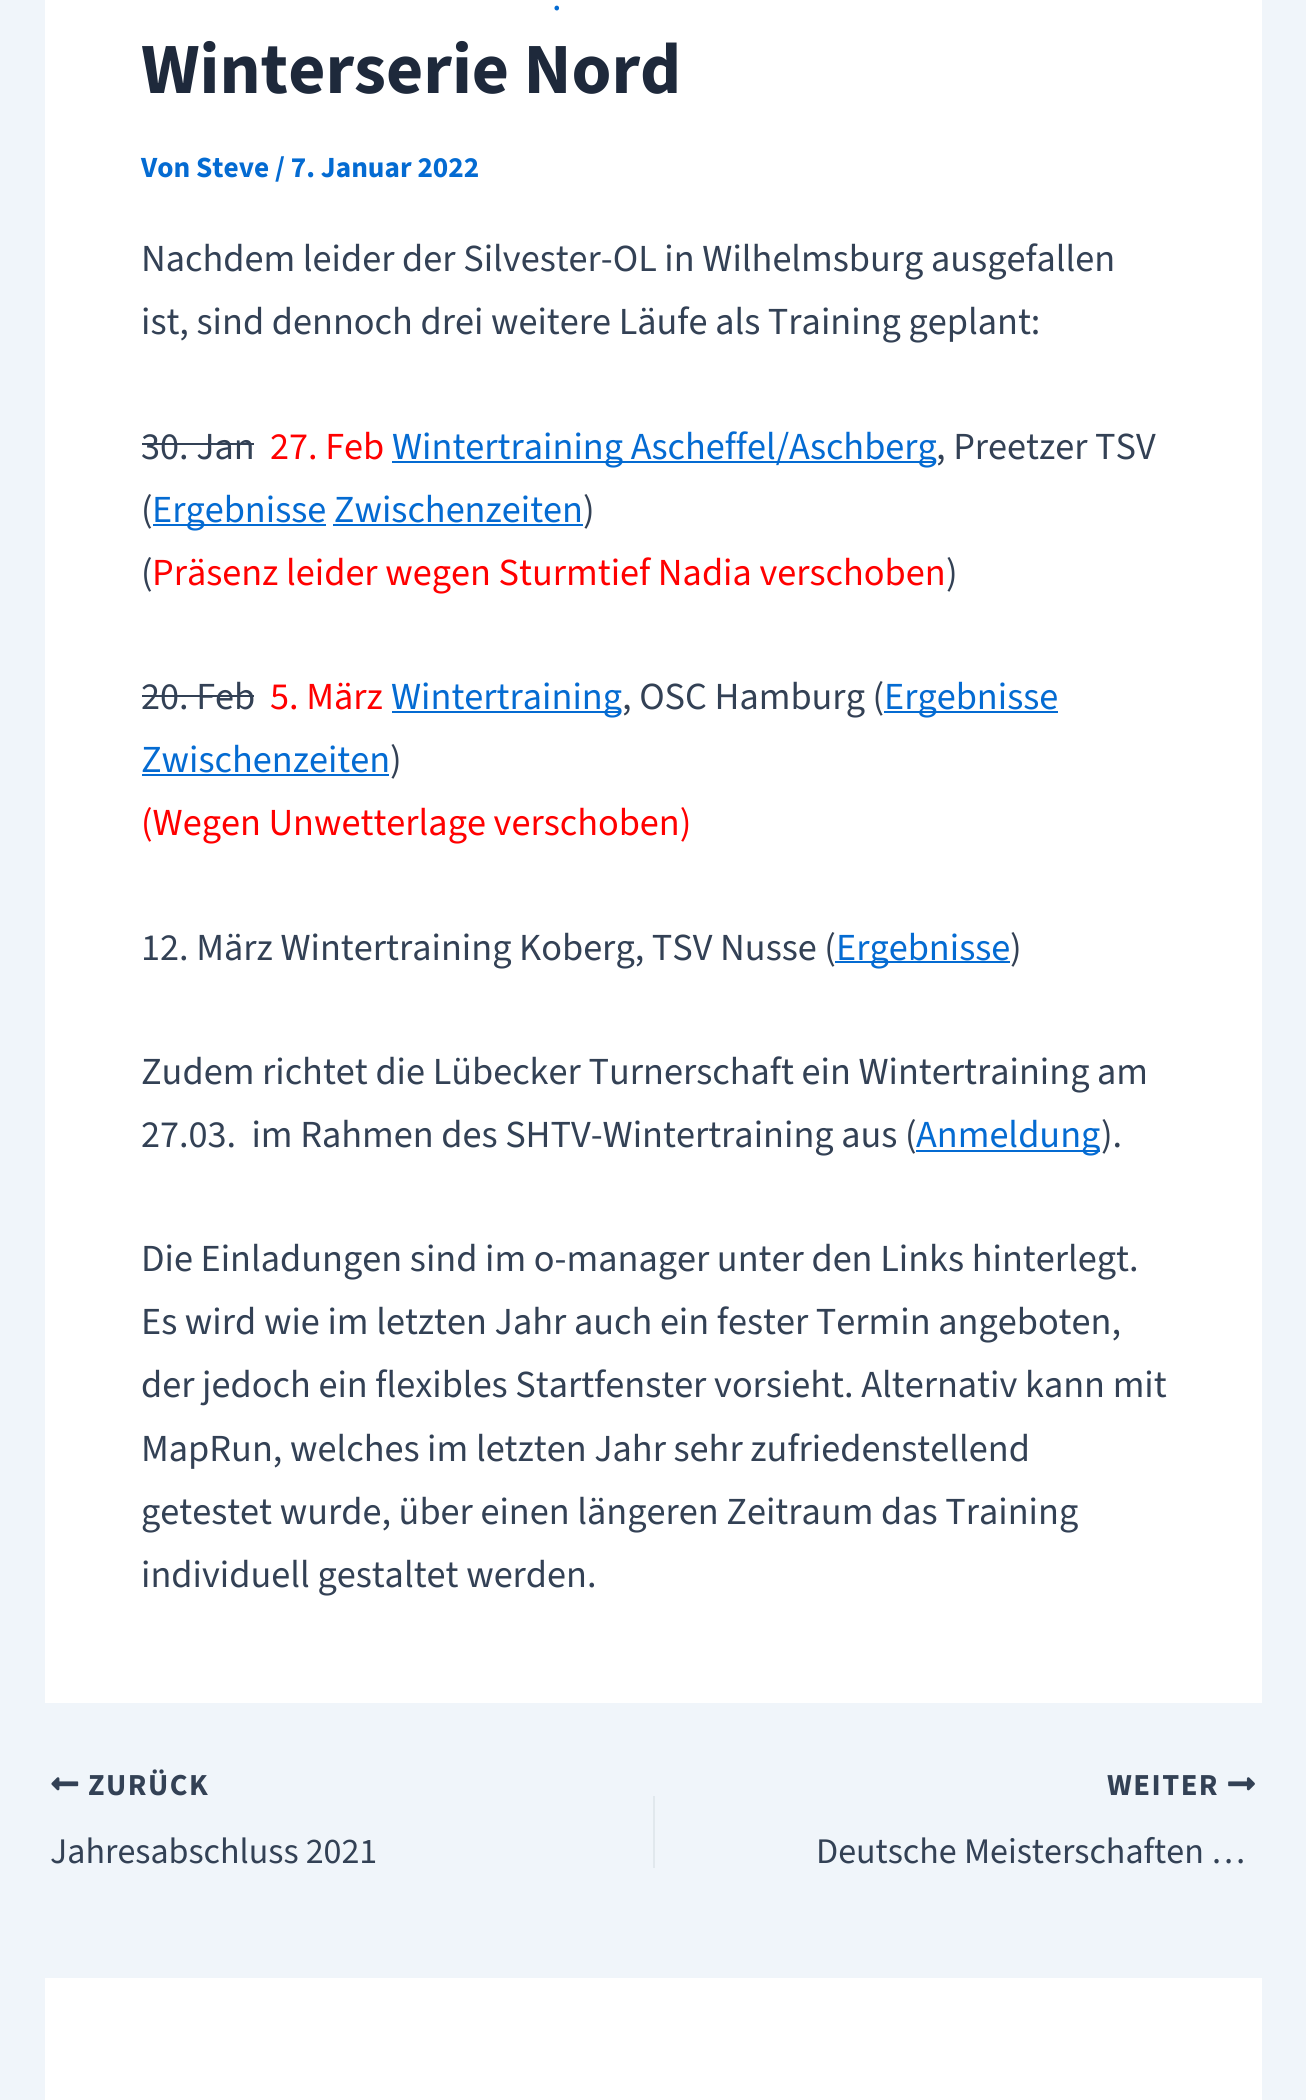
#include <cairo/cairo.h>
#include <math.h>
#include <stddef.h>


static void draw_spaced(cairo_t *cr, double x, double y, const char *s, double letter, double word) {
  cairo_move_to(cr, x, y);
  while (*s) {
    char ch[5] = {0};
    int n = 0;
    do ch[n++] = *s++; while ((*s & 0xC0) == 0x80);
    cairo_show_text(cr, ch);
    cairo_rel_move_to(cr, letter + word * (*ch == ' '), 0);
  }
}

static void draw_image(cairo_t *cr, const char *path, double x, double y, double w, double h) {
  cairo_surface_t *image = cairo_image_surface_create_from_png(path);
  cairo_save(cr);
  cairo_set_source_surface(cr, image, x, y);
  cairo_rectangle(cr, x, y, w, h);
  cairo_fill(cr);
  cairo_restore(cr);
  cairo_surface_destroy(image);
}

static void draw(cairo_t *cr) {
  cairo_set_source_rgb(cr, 240 / 255.0, 245 / 255.0, 250 / 255.0);
  cairo_paint(cr);
  cairo_set_source_rgb(cr, 1, 1, 1);
  cairo_rectangle(cr, 45, 0, 1217, 1703);
  cairo_fill(cr);
  cairo_set_source_rgb(cr, 51 / 255.0, 65 / 255.0, 85 / 255.0);
  cairo_rectangle(cr, 142, 443, 112, 2);
  cairo_fill(cr);
  cairo_set_source_rgb(cr, 4 / 255.0, 107 / 255.0, 210 / 255.0);
  cairo_rectangle(cr, 392, 461, 544, 2);
  cairo_fill(cr);
  cairo_rectangle(cr, 153, 524, 173, 2);
  cairo_fill(cr);
  cairo_rectangle(cr, 333, 524, 250, 2);
  cairo_fill(cr);
  cairo_set_source_rgb(cr, 51 / 255.0, 65 / 255.0, 85 / 255.0);
  cairo_rectangle(cr, 142, 695, 112, 2);
  cairo_fill(cr);
  cairo_set_source_rgb(cr, 4 / 255.0, 107 / 255.0, 210 / 255.0);
  cairo_rectangle(cr, 392, 711, 229, 2);
  cairo_fill(cr);
  cairo_rectangle(cr, 884, 711, 174, 2);
  cairo_fill(cr);
  cairo_rectangle(cr, 142, 774, 247, 2);
  cairo_fill(cr);
  cairo_rectangle(cr, 835, 961, 175, 2);
  cairo_fill(cr);
  cairo_rectangle(cr, 916, 1150, 184, 2);
  cairo_fill(cr);
  draw_image(cr, "images/1.png", 51, 1777, 28, 14);
  cairo_set_source_rgb(cr, 225 / 255.0, 232 / 255.0, 237 / 255.0);
  cairo_rectangle(cr, 653, 1796, 2, 72);
  cairo_fill(cr);
  draw_image(cr, "images/2.png", 1228, 1777, 27, 14);
  cairo_set_source_rgb(cr, 1, 1, 1);
  cairo_rectangle(cr, 45, 1978, 1217, 122);
  cairo_fill(cr);
  cairo_select_font_face(cr, "Source Sans 3", CAIRO_FONT_SLANT_NORMAL, CAIRO_FONT_WEIGHT_NORMAL);
  cairo_set_font_size(cr, 38.25);
  cairo_set_source_rgb(cr, 4 / 255.0, 107 / 255.0, 210 / 255.0);
  cairo_move_to(cr, 552, 10);
  cairo_show_text(cr, ".");
  cairo_select_font_face(cr, "Source Sans 3", CAIRO_FONT_SLANT_NORMAL, CAIRO_FONT_WEIGHT_BOLD);
  cairo_set_font_size(cr, 72);
  cairo_set_source_rgb(cr, 30 / 255.0, 41 / 255.0, 59 / 255.0);
  cairo_move_to(cr, 141, 93);
  cairo_show_text(cr, "Winterserie Nord");
  cairo_set_font_size(cr, 29.25);
  cairo_set_source_rgb(cr, 4 / 255.0, 107 / 255.0, 210 / 255.0);
  cairo_move_to(cr, 141, 177);
  cairo_show_text(cr, "Von Steve / 7. Januar 2022");
  cairo_select_font_face(cr, "Source Sans 3", CAIRO_FONT_SLANT_NORMAL, CAIRO_FONT_WEIGHT_NORMAL);
  cairo_set_font_size(cr, 38.25);
  cairo_set_source_rgb(cr, 51 / 255.0, 65 / 255.0, 85 / 255.0);
  cairo_move_to(cr, 141, 271);
  cairo_show_text(cr, "Nachdem leider der Silvester-OL in Wilhelmsburg ausgefallen");
  cairo_move_to(cr, 141, 334);
  cairo_show_text(cr, "ist, sind dennoch drei weitere Läufe als Training geplant:");
  cairo_move_to(cr, 141, 459);
  cairo_show_text(cr, "30. Jan");
  cairo_set_source_rgb(cr, 1, 0, 0);
  cairo_move_to(cr, 270, 459);
  cairo_show_text(cr, "27. Feb");
  cairo_set_source_rgb(cr, 4 / 255.0, 107 / 255.0, 210 / 255.0);
  cairo_move_to(cr, 392, 459);
  cairo_show_text(cr, "Wintertraining Ascheffel/Aschberg");
  cairo_set_source_rgb(cr, 51 / 255.0, 65 / 255.0, 85 / 255.0);
  cairo_move_to(cr, 936, 459);
  cairo_show_text(cr, ", Preetzer TSV");
  cairo_move_to(cr, 141, 522);
  cairo_show_text(cr, "(");
  cairo_set_source_rgb(cr, 4 / 255.0, 107 / 255.0, 210 / 255.0);
  cairo_move_to(cr, 152, 522);
  cairo_show_text(cr, "Ergebnisse Zwischenzeiten");
  cairo_set_source_rgb(cr, 51 / 255.0, 65 / 255.0, 85 / 255.0);
  cairo_move_to(cr, 583, 522);
  cairo_show_text(cr, ")");
  cairo_move_to(cr, 141, 585);
  cairo_show_text(cr, "(");
  cairo_set_source_rgb(cr, 1, 0, 0);
  cairo_move_to(cr, 152, 585);
  cairo_show_text(cr, "Präsenz leider wegen Sturmtief Nadia verschoben");
  cairo_set_source_rgb(cr, 51 / 255.0, 65 / 255.0, 85 / 255.0);
  cairo_move_to(cr, 946, 585);
  cairo_show_text(cr, ")");
  cairo_move_to(cr, 141, 709);
  cairo_show_text(cr, "20. Feb");
  cairo_set_source_rgb(cr, 1, 0, 0);
  cairo_move_to(cr, 270, 709);
  cairo_show_text(cr, "5. März");
  cairo_set_source_rgb(cr, 4 / 255.0, 107 / 255.0, 210 / 255.0);
  cairo_move_to(cr, 391, 709);
  cairo_show_text(cr, "Wintertraining");
  cairo_set_source_rgb(cr, 51 / 255.0, 65 / 255.0, 85 / 255.0);
  cairo_move_to(cr, 622, 709);
  cairo_show_text(cr, ", OSC Hamburg (");
  cairo_set_source_rgb(cr, 4 / 255.0, 107 / 255.0, 210 / 255.0);
  cairo_move_to(cr, 884, 709);
  cairo_show_text(cr, "Ergebnisse");
  cairo_move_to(cr, 141, 772);
  cairo_show_text(cr, "Zwischenzeiten");
  cairo_set_source_rgb(cr, 51 / 255.0, 65 / 255.0, 85 / 255.0);
  cairo_move_to(cr, 390, 772);
  cairo_show_text(cr, ")");
  cairo_set_source_rgb(cr, 1, 0, 0);
  cairo_move_to(cr, 141, 835);
  cairo_show_text(cr, "(Wegen Unwetterlage verschoben)");
  cairo_set_source_rgb(cr, 51 / 255.0, 65 / 255.0, 85 / 255.0);
  cairo_move_to(cr, 141, 960);
  cairo_show_text(cr, "12. März Wintertraining Koberg, TSV Nusse (");
  cairo_set_source_rgb(cr, 4 / 255.0, 107 / 255.0, 210 / 255.0);
  cairo_move_to(cr, 836, 960);
  cairo_show_text(cr, "Ergebnisse");
  cairo_set_source_rgb(cr, 51 / 255.0, 65 / 255.0, 85 / 255.0);
  cairo_move_to(cr, 1010, 960);
  cairo_show_text(cr, ")");
  cairo_move_to(cr, 141, 1084);
  cairo_show_text(cr, "Zudem richtet die Lübecker Turnerschaft ein Wintertraining am");
  cairo_move_to(cr, 141, 1147);
  cairo_show_text(cr, "27.03.  im Rahmen des SHTV-Wintertraining aus (");
  cairo_set_source_rgb(cr, 4 / 255.0, 107 / 255.0, 210 / 255.0);
  cairo_move_to(cr, 916, 1147);
  cairo_show_text(cr, "Anmeldung");
  cairo_set_source_rgb(cr, 51 / 255.0, 65 / 255.0, 85 / 255.0);
  cairo_move_to(cr, 1101, 1147);
  cairo_show_text(cr, ").");
  cairo_move_to(cr, 141, 1271);
  cairo_show_text(cr, "Die Einladungen sind im o-manager unter den Links hinterlegt.");
  cairo_move_to(cr, 141, 1334);
  cairo_show_text(cr, "Es wird wie im letzten Jahr auch ein fester Termin angeboten,");
  cairo_move_to(cr, 141, 1397);
  cairo_show_text(cr, "der jedoch ein flexibles Startfenster vorsieht. Alternativ kann mit");
  cairo_move_to(cr, 141, 1461);
  cairo_show_text(cr, "MapRun, welches im letzten Jahr sehr zufriedenstellend");
  cairo_move_to(cr, 141, 1524);
  cairo_show_text(cr, "getestet wurde, über einen längeren Zeitraum das Training");
  cairo_move_to(cr, 141, 1587);
  cairo_show_text(cr, "individuell gestaltet werden.");
  cairo_select_font_face(cr, "Source Sans 3", CAIRO_FONT_SLANT_NORMAL, CAIRO_FONT_WEIGHT_BOLD);
  cairo_set_font_size(cr, 30.5);
  draw_spaced(cr, 88, 1795, "ZURÜCK", 1.5, 0);
  cairo_select_font_face(cr, "Source Sans 3", CAIRO_FONT_SLANT_NORMAL, CAIRO_FONT_WEIGHT_NORMAL);
  cairo_set_font_size(cr, 36);
  cairo_move_to(cr, 50, 1863);
  cairo_show_text(cr, "Jahresabschluss 2021");
  cairo_select_font_face(cr, "Source Sans 3", CAIRO_FONT_SLANT_NORMAL, CAIRO_FONT_WEIGHT_BOLD);
  cairo_set_font_size(cr, 30.5);
  draw_spaced(cr, 1107, 1795, "WEITER", 1.5, 0);
  cairo_select_font_face(cr, "Source Sans 3", CAIRO_FONT_SLANT_NORMAL, CAIRO_FONT_WEIGHT_NORMAL);
  cairo_set_font_size(cr, 36);
  cairo_move_to(cr, 816, 1863);
  cairo_show_text(cr, "Deutsche Meisterschaften …");
}

int main(void) {
  cairo_surface_t *surface = cairo_image_surface_create(CAIRO_FORMAT_RGB24, 1306, 2100);
  cairo_t *cr = cairo_create(surface);
  cairo_font_options_t *options = cairo_font_options_create();
  cairo_font_options_set_hint_metrics(options, CAIRO_HINT_METRICS_OFF);
  cairo_font_options_set_hint_style(options, CAIRO_HINT_STYLE_NONE);
  cairo_set_font_options(cr, options);
  cairo_set_miter_limit(cr, 4);
  draw(cr);
  cairo_surface_write_to_png(surface, "out.png");
  cairo_font_options_destroy(options);
  cairo_destroy(cr);
  cairo_surface_destroy(surface);
  return 0;
}
